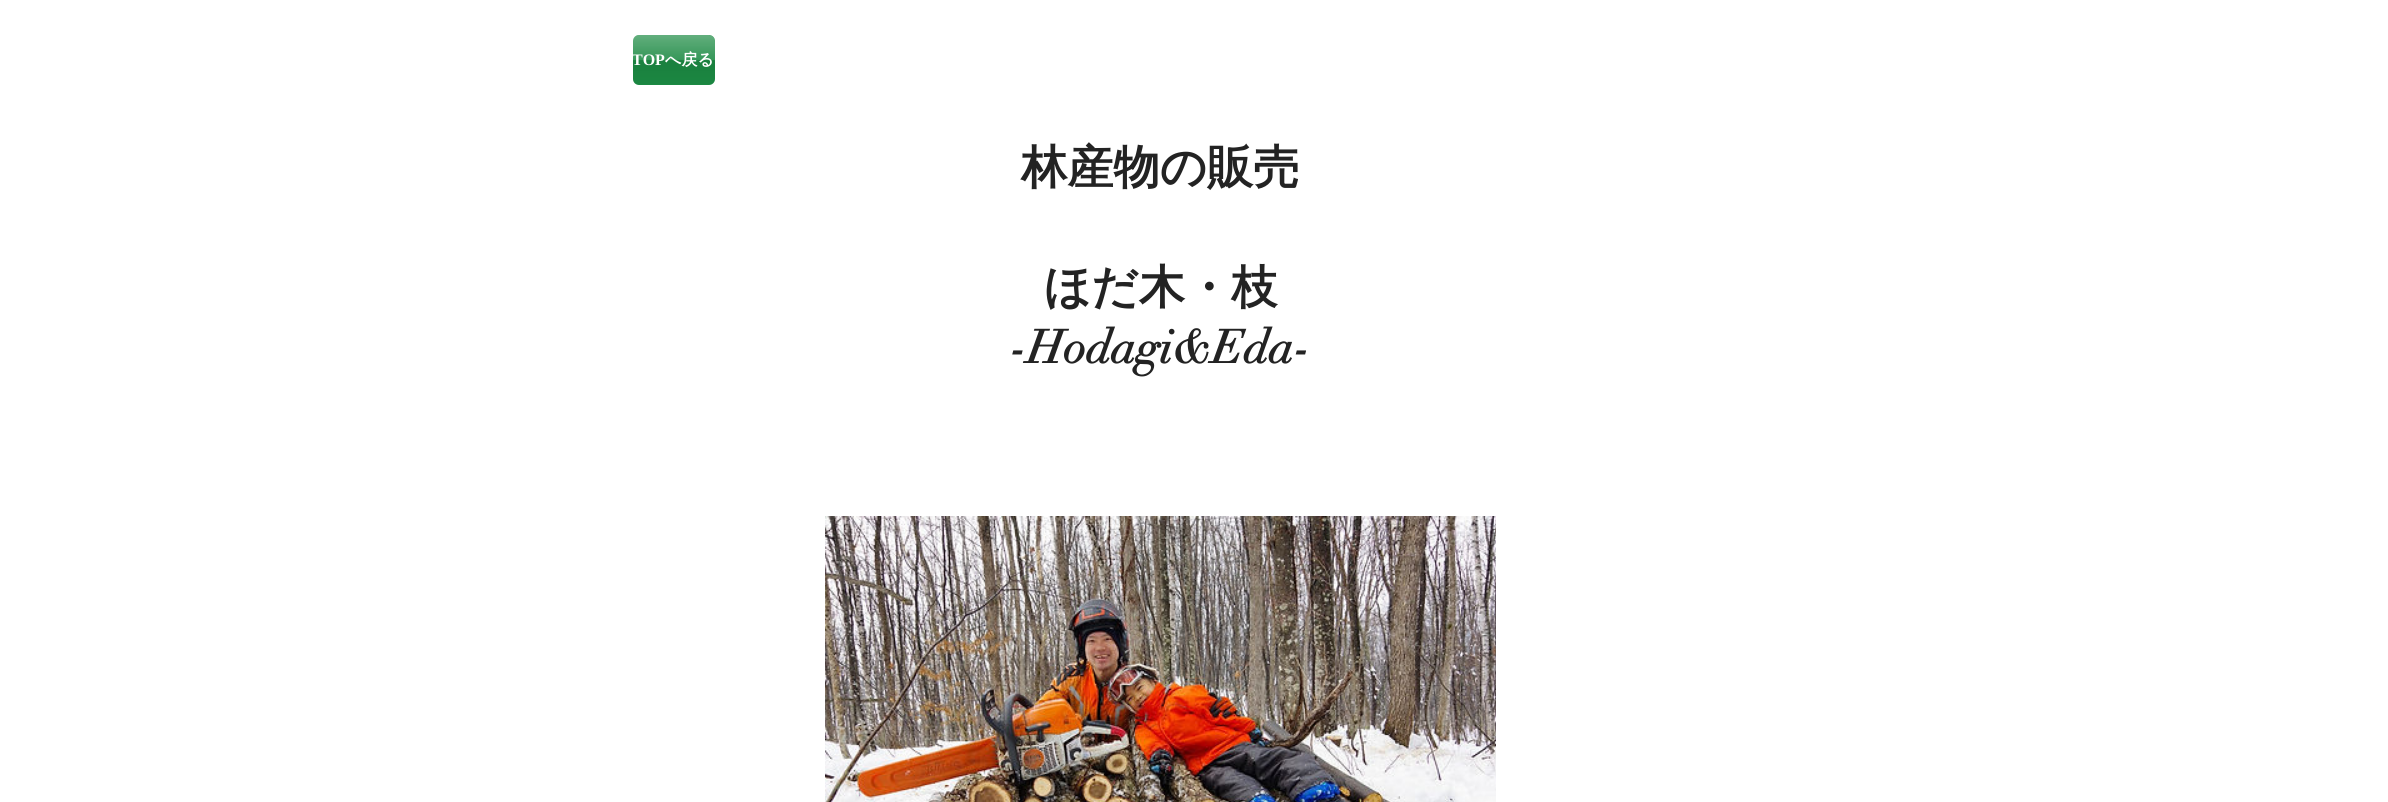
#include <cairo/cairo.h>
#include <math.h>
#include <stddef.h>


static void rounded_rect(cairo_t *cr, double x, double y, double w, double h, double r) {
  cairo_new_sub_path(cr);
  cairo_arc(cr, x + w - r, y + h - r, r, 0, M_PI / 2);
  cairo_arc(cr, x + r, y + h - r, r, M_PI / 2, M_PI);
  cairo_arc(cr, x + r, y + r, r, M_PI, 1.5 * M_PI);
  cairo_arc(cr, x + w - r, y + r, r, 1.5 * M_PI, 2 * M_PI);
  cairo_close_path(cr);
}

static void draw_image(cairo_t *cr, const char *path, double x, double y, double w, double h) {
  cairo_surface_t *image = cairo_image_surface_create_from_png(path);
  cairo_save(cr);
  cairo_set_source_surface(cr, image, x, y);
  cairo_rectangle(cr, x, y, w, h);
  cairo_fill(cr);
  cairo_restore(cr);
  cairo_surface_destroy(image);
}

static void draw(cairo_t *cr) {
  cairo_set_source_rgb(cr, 1, 1, 1);
  cairo_paint(cr);
  cairo_set_source_rgb(cr, 28 / 255.0, 138 / 255.0, 67 / 255.0);
  rounded_rect(cr, 633, 35, 82, 50, 6);
  cairo_fill(cr);
  draw_image(cr, "images/1.png", 633, 35, 82, 49);
  draw_image(cr, "images/2.png", 825, 516, 671, 286);
  cairo_select_font_face(cr, "Liberation Serif", CAIRO_FONT_SLANT_NORMAL, CAIRO_FONT_WEIGHT_BOLD);
  cairo_set_font_size(cr, 16);
  cairo_set_source_rgb(cr, 1, 1, 1);
  cairo_move_to(cr, 632, 65);
  cairo_show_text(cr, "TOP");
  cairo_select_font_face(cr, "WenQuanYi Zen Hei", CAIRO_FONT_SLANT_NORMAL, CAIRO_FONT_WEIGHT_BOLD);
  cairo_move_to(cr, 665, 65);
  cairo_show_text(cr, "へ戻る");
  cairo_set_font_size(cr, 46.25);
  cairo_set_source_rgb(cr, 35 / 255.0, 35 / 255.0, 35 / 255.0);
  cairo_move_to(cr, 1021, 183);
  cairo_show_text(cr, "林産物の販売");
  cairo_move_to(cr, 1044, 303);
  cairo_show_text(cr, "ほだ木・枝");
  cairo_select_font_face(cr, "didot", CAIRO_FONT_SLANT_NORMAL, CAIRO_FONT_WEIGHT_BOLD);
  cairo_move_to(cr, 1010, 363);
  cairo_show_text(cr, "-Hodagi&Eda-");
}

int main(void) {
  cairo_surface_t *surface = cairo_image_surface_create(CAIRO_FORMAT_RGB24, 2388, 802);
  cairo_t *cr = cairo_create(surface);
  cairo_font_options_t *options = cairo_font_options_create();
  cairo_font_options_set_hint_metrics(options, CAIRO_HINT_METRICS_OFF);
  cairo_font_options_set_hint_style(options, CAIRO_HINT_STYLE_NONE);
  cairo_set_font_options(cr, options);
  cairo_set_miter_limit(cr, 4);
  draw(cr);
  cairo_surface_write_to_png(surface, "out.png");
  cairo_font_options_destroy(options);
  cairo_destroy(cr);
  cairo_surface_destroy(surface);
  return 0;
}
